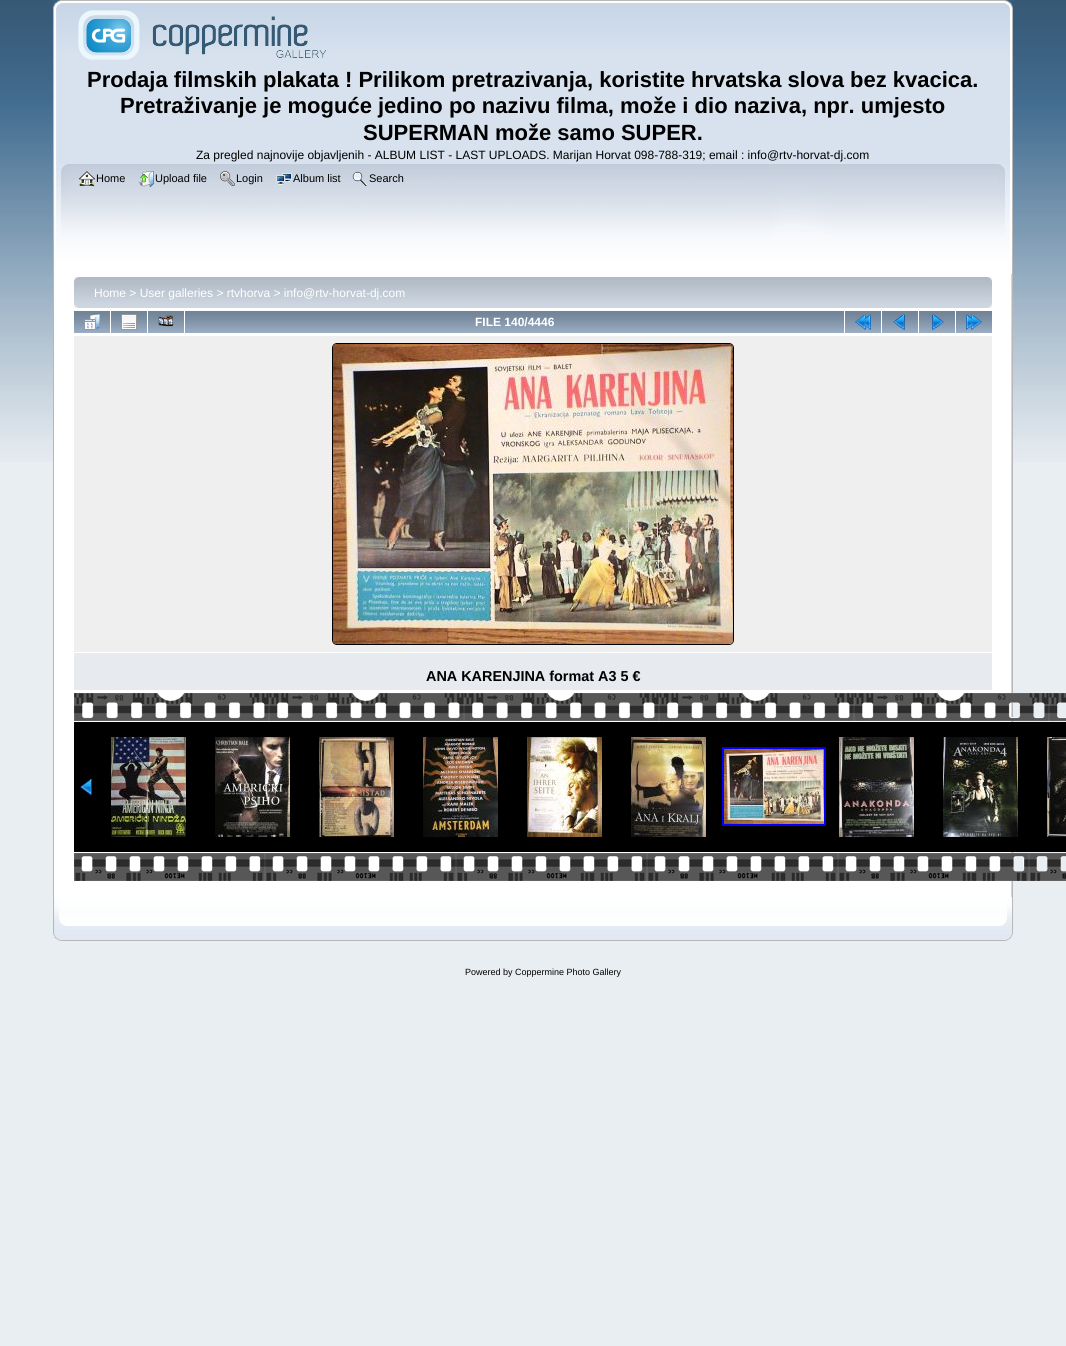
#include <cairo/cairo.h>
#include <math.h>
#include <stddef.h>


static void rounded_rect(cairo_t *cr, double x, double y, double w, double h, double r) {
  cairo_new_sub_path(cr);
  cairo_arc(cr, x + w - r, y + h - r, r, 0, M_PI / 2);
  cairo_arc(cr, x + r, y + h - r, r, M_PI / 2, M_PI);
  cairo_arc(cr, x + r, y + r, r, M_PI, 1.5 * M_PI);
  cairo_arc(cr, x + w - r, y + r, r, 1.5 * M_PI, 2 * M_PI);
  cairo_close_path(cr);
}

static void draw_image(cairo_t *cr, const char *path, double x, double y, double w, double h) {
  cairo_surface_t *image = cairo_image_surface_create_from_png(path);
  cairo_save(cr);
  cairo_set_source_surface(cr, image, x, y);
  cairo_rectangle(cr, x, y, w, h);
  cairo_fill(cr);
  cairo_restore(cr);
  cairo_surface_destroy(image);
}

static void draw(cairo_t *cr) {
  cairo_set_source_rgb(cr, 233 / 255.0, 238 / 255.0, 242 / 255.0);
  cairo_paint(cr);
  draw_image(cr, "images/1.png", 0, 0, 1066, 462);
  draw_image(cr, "images/2.png", 53, 0, 952, 164);
  draw_image(cr, "images/3.png", 1005, 0, 8, 164);
  draw_image(cr, "images/4.png", 78, 10, 248, 50);
  draw_image(cr, "images/5.png", 53, 164, 945, 110);
  draw_image(cr, "images/6.png", 998, 164, 15, 110);
  draw_image(cr, "images/7.png", 79, 171, 16, 16);
  draw_image(cr, "images/8.png", 138, 171, 16, 16);
  draw_image(cr, "images/9.png", 220, 171, 15, 15);
  draw_image(cr, "images/10.png", 276, 173, 16, 12);
  draw_image(cr, "images/11.png", 352, 171, 16, 15);
  cairo_set_source_rgb(cr, 1, 1, 1);
  cairo_rectangle(cr, 54, 274, 957, 623);
  cairo_fill(cr);
  cairo_set_source_rgb(cr, 183 / 255.0, 183 / 255.0, 183 / 255.0);
  cairo_rectangle(cr, 53, 274, 1, 623);
  cairo_fill(cr);
  draw_image(cr, "images/12.png", 1011, 274, 2, 623);
  draw_image(cr, "images/13.png", 74, 277, 913, 31);
  draw_image(cr, "images/14.png", 987, 277, 5, 31);
  draw_image(cr, "images/15.png", 74, 311, 36, 22);
  draw_image(cr, "images/16.png", 84, 314, 16, 16);
  draw_image(cr, "images/15.png", 111, 311, 36, 22);
  draw_image(cr, "images/17.png", 121, 314, 16, 16);
  draw_image(cr, "images/15.png", 148, 311, 36, 22);
  draw_image(cr, "images/18.png", 158, 315, 16, 12);
  draw_image(cr, "images/19.png", 185, 311, 659, 22);
  draw_image(cr, "images/15.png", 845, 311, 36, 22);
  draw_image(cr, "images/20.png", 855, 314, 16, 16);
  draw_image(cr, "images/15.png", 882, 311, 36, 22);
  draw_image(cr, "images/21.png", 893, 314, 12, 16);
  draw_image(cr, "images/15.png", 919, 311, 36, 22);
  draw_image(cr, "images/22.png", 932, 314, 12, 16);
  draw_image(cr, "images/15.png", 956, 311, 36, 22);
  draw_image(cr, "images/23.png", 966, 314, 16, 16);
  cairo_set_source_rgb(cr, 239 / 255.0, 239 / 255.0, 239 / 255.0);
  cairo_rectangle(cr, 74, 336, 918, 316);
  cairo_fill(cr);
  rounded_rect(cr, 332.5, 343.5, 401, 301, 4.5);
  cairo_set_source_rgb(cr, 0, 0, 0);
  cairo_set_line_width(cr, 1);
  cairo_stroke(cr);
  draw_image(cr, "images/24.png", 333, 344, 400, 300);
  cairo_set_source_rgb(cr, 231 / 255.0, 234 / 255.0, 239 / 255.0);
  cairo_rectangle(cr, 74, 653, 918, 37);
  cairo_fill(cr);
  draw_image(cr, "images/25.png", 74, 693, 992, 28);
  cairo_set_source_rgb(cr, 0, 0, 0);
  cairo_rectangle(cr, 74, 722, 992, 130);
  cairo_fill(cr);
  draw_image(cr, "images/26.png", 80, 779, 12, 16);
  draw_image(cr, "images/27.png", 111, 737, 75, 100);
  draw_image(cr, "images/28.png", 215, 737, 75, 100);
  draw_image(cr, "images/29.png", 319, 737, 75, 100);
  draw_image(cr, "images/30.png", 423, 737, 75, 100);
  draw_image(cr, "images/31.png", 527, 737, 75, 100);
  draw_image(cr, "images/32.png", 631, 737, 75, 100);
  cairo_rectangle(cr, 723, 748, 102, 77);
  cairo_set_source_rgb(cr, 0, 0, 1);
  cairo_set_line_width(cr, 2);
  cairo_stroke(cr);
  draw_image(cr, "images/33.png", 724, 749, 100, 75);
  draw_image(cr, "images/34.png", 839, 737, 75, 100);
  draw_image(cr, "images/35.png", 943, 737, 75, 100);
  draw_image(cr, "images/36.png", 1047, 737, 19, 100);
  draw_image(cr, "images/37.png", 74, 853, 992, 28);
  draw_image(cr, "images/38.png", 53, 897, 947, 44);
  draw_image(cr, "images/39.png", 1000, 897, 13, 44);
  cairo_select_font_face(cr, "Liberation Sans", CAIRO_FONT_SLANT_NORMAL, CAIRO_FONT_WEIGHT_BOLD);
  cairo_set_font_size(cr, 22);
  cairo_set_source_rgb(cr, 0, 0, 0);
  cairo_move_to(cr, 87, 87);
  cairo_show_text(cr, "Prodaja filmskih plakata ! Prilikom pretrazivanja, koristite hrvatska slova bez kvacica.");
  cairo_move_to(cr, 120, 113);
  cairo_show_text(cr, "Pretraživanje je moguće jedino po nazivu filma, može i dio naziva, npr. umjesto");
  cairo_move_to(cr, 363, 140);
  cairo_show_text(cr, "SUPERMAN može samo SUPER.");
  cairo_select_font_face(cr, "Liberation Sans", CAIRO_FONT_SLANT_NORMAL, CAIRO_FONT_WEIGHT_NORMAL);
  cairo_set_font_size(cr, 12);
  cairo_move_to(cr, 196, 159);
  cairo_show_text(cr, "Za pregled najnovije objavljenih - ALBUM LIST - LAST UPLOADS. Marijan Horvat 098-788-319; email : info@rtv-horvat-dj.com");
  cairo_set_font_size(cr, 11);
  cairo_move_to(cr, 96, 182);
  cairo_show_text(cr, "Home");
  cairo_move_to(cr, 155, 182);
  cairo_show_text(cr, "Upload file");
  cairo_move_to(cr, 236, 182);
  cairo_show_text(cr, "Login");
  cairo_move_to(cr, 293, 182);
  cairo_show_text(cr, "Album list");
  cairo_move_to(cr, 369, 182);
  cairo_show_text(cr, "Search");
  cairo_set_font_size(cr, 12);
  cairo_set_source_rgb(cr, 1, 1, 1);
  cairo_move_to(cr, 94, 297);
  cairo_show_text(cr, "Home > User galleries > rtvhorva > info@rtv-horvat-dj.com");
  cairo_select_font_face(cr, "Liberation Sans", CAIRO_FONT_SLANT_NORMAL, CAIRO_FONT_WEIGHT_BOLD);
  cairo_move_to(cr, 475, 326);
  cairo_show_text(cr, "FILE 140/4446");
  cairo_set_font_size(cr, 14.4);
  cairo_set_source_rgb(cr, 0, 0, 0);
  cairo_move_to(cr, 426, 681);
  cairo_show_text(cr, "ANA KARENJINA format A3 5 €");
  cairo_select_font_face(cr, "Liberation Sans", CAIRO_FONT_SLANT_NORMAL, CAIRO_FONT_WEIGHT_NORMAL);
  cairo_set_font_size(cr, 9);
  cairo_move_to(cr, 465, 975);
  cairo_show_text(cr, "Powered by Coppermine Photo Gallery");
}

int main(void) {
  cairo_surface_t *surface = cairo_image_surface_create(CAIRO_FORMAT_RGB24, 1066, 1346);
  cairo_t *cr = cairo_create(surface);
  cairo_font_options_t *options = cairo_font_options_create();
  cairo_font_options_set_hint_metrics(options, CAIRO_HINT_METRICS_OFF);
  cairo_font_options_set_hint_style(options, CAIRO_HINT_STYLE_NONE);
  cairo_set_font_options(cr, options);
  cairo_set_miter_limit(cr, 4);
  draw(cr);
  cairo_surface_write_to_png(surface, "out.png");
  cairo_font_options_destroy(options);
  cairo_destroy(cr);
  cairo_surface_destroy(surface);
  return 0;
}
